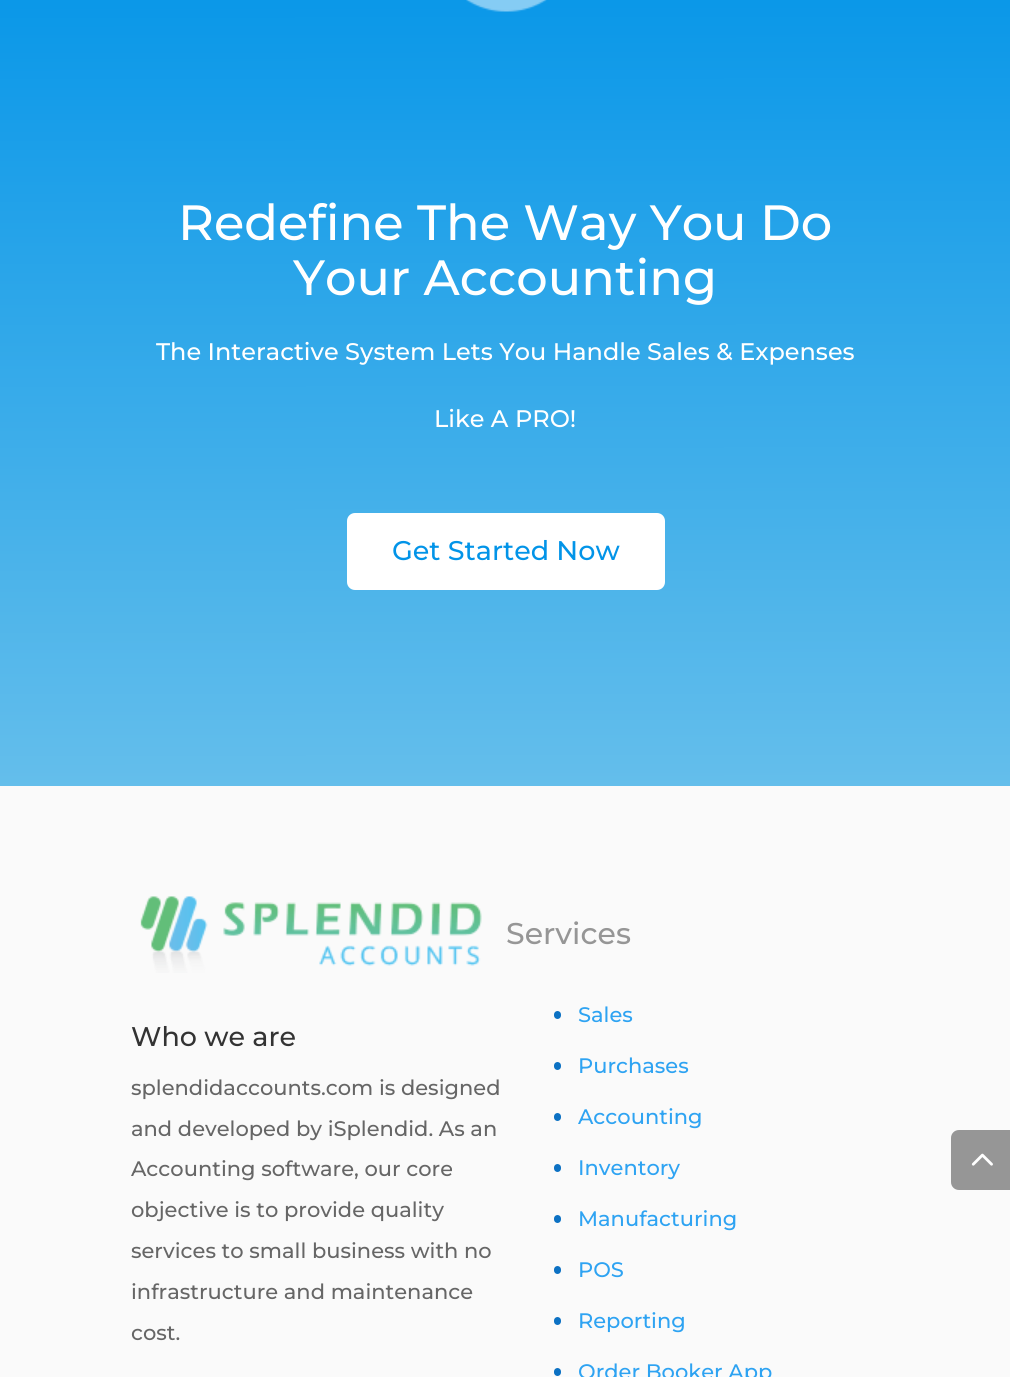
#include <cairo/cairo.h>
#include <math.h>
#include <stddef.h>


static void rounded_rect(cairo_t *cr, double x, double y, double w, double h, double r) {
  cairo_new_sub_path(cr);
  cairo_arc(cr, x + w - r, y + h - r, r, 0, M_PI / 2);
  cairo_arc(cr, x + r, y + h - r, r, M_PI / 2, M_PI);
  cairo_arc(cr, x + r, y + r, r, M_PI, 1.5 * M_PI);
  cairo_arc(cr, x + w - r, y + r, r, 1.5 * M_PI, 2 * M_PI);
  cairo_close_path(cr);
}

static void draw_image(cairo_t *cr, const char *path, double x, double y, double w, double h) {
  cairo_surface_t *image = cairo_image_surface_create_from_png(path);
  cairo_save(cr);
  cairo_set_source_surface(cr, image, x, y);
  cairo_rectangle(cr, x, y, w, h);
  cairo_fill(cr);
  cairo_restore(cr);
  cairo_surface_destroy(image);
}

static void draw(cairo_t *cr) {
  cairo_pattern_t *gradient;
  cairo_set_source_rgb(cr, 1, 1, 1);
  cairo_paint(cr);
  gradient = cairo_pattern_create_linear(505, -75, 506, 786);
  cairo_pattern_add_color_stop_rgba(gradient, 0, 2 / 255.0, 148 / 255.0, 232 / 255.0, 1);
  cairo_pattern_add_color_stop_rgba(gradient, 1, 100 / 255.0, 190 / 255.0, 235 / 255.0, 1);
  cairo_set_source(cr, gradient);
  cairo_pattern_destroy(gradient);
  cairo_rectangle(cr, 0, 0, 1010, 786);
  cairo_fill(cr);
  draw_image(cr, "images/1.png", 466, 0, 81, 12);
  cairo_set_source_rgb(cr, 1, 1, 1);
  rounded_rect(cr, 347, 513, 318, 77, 8);
  cairo_fill(cr);
  cairo_set_source_rgb(cr, 250 / 255.0, 250 / 255.0, 250 / 255.0);
  cairo_rectangle(cr, 0, 786, 1010, 591);
  cairo_fill(cr);
  draw_image(cr, "images/2.png", 140, 896, 342, 77);
  cairo_set_source_rgb(cr, 12 / 255.0, 113 / 255.0, 195 / 255.0);
  rounded_rect(cr, 554, 1011, 7, 8, 3.5);
  cairo_fill(cr);
  rounded_rect(cr, 554, 1062, 7, 8, 3.5);
  cairo_fill(cr);
  rounded_rect(cr, 554, 1113, 7, 8, 3.5);
  cairo_fill(cr);
  rounded_rect(cr, 554, 1164, 7, 8, 3.5);
  cairo_fill(cr);
  rounded_rect(cr, 554, 1215, 7, 8, 3.5);
  cairo_fill(cr);
  rounded_rect(cr, 554, 1266, 7, 8, 3.5);
  cairo_fill(cr);
  rounded_rect(cr, 554, 1317, 7, 8, 3.5);
  cairo_fill(cr);
  rounded_rect(cr, 554, 1368, 7, 8, 3.5);
  cairo_fill(cr);
  cairo_set_source_rgb(cr, 150 / 255.0, 150 / 255.0, 150 / 255.0);
  cairo_new_path(cr);
  cairo_move_to(cr, 959, 1130);
  cairo_line_to(cr, 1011, 1130);
  cairo_line_to(cr, 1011, 1190);
  cairo_line_to(cr, 959, 1190);
  cairo_curve_to(cr, 954.5, 1190, 951, 1186.5, 951, 1182);
  cairo_line_to(cr, 951, 1138);
  cairo_curve_to(cr, 951, 1133.5, 954.5, 1130, 959, 1130);
  cairo_close_path(cr);
  cairo_fill(cr);
  draw_image(cr, "images/3.png", 971, 1153, 22, 13);
  cairo_select_font_face(cr, "Montserrat Thin", CAIRO_FONT_SLANT_NORMAL, CAIRO_FONT_WEIGHT_NORMAL);
  cairo_set_font_size(cr, 49.5);
  cairo_set_source_rgb(cr, 1, 1, 1);
  cairo_move_to(cr, 178, 240);
  cairo_show_text(cr, "Redefine The Way You Do");
  cairo_move_to(cr, 293, 295);
  cairo_show_text(cr, "Your Accounting");
  cairo_set_font_size(cr, 24);
  cairo_move_to(cr, 156, 360);
  cairo_show_text(cr, "The Interactive System Lets You Handle Sales & Expenses");
  cairo_move_to(cr, 434, 427);
  cairo_show_text(cr, "Like A PRO!");
  cairo_set_font_size(cr, 27);
  cairo_set_source_rgb(cr, 2 / 255.0, 148 / 255.0, 232 / 255.0);
  cairo_move_to(cr, 392, 560);
  cairo_show_text(cr, "Get Started Now");
  cairo_set_source_rgb(cr, 51 / 255.0, 51 / 255.0, 51 / 255.0);
  cairo_move_to(cr, 131, 1046);
  cairo_show_text(cr, "Who we are");
  cairo_set_font_size(cr, 21);
  cairo_set_source_rgb(cr, 102 / 255.0, 102 / 255.0, 102 / 255.0);
  cairo_move_to(cr, 131, 1095);
  cairo_show_text(cr, "splendidaccounts.com is designed");
  cairo_move_to(cr, 131, 1136);
  cairo_show_text(cr, "and developed by iSplendid. As an");
  cairo_move_to(cr, 131, 1176);
  cairo_show_text(cr, "Accounting software, our core");
  cairo_move_to(cr, 131, 1217);
  cairo_show_text(cr, "objective is to provide quality");
  cairo_move_to(cr, 131, 1258);
  cairo_show_text(cr, "services to small business with no");
  cairo_move_to(cr, 131, 1299);
  cairo_show_text(cr, "infrastructure and maintenance");
  cairo_move_to(cr, 131, 1340);
  cairo_show_text(cr, "cost.");
  cairo_set_font_size(cr, 30);
  cairo_set_source_rgb(cr, 150 / 255.0, 150 / 255.0, 150 / 255.0);
  cairo_move_to(cr, 506, 944);
  cairo_show_text(cr, "Services");
  cairo_set_font_size(cr, 21);
  cairo_set_source_rgb(cr, 46 / 255.0, 163 / 255.0, 242 / 255.0);
  cairo_move_to(cr, 578, 1022);
  cairo_show_text(cr, "Sales");
  cairo_move_to(cr, 578, 1073);
  cairo_show_text(cr, "Purchases");
  cairo_move_to(cr, 578, 1124);
  cairo_show_text(cr, "Accounting");
  cairo_move_to(cr, 578, 1175);
  cairo_show_text(cr, "Inventory");
  cairo_move_to(cr, 578, 1226);
  cairo_show_text(cr, "Manufacturing");
  cairo_move_to(cr, 578, 1277);
  cairo_show_text(cr, "POS");
  cairo_move_to(cr, 578, 1328);
  cairo_show_text(cr, "Reporting");
  cairo_move_to(cr, 578, 1379);
  cairo_show_text(cr, "Order Booker App");
}

int main(void) {
  cairo_surface_t *surface = cairo_image_surface_create(CAIRO_FORMAT_RGB24, 1010, 1377);
  cairo_t *cr = cairo_create(surface);
  cairo_font_options_t *options = cairo_font_options_create();
  cairo_font_options_set_hint_metrics(options, CAIRO_HINT_METRICS_OFF);
  cairo_font_options_set_hint_style(options, CAIRO_HINT_STYLE_NONE);
  cairo_set_font_options(cr, options);
  cairo_set_miter_limit(cr, 4);
  draw(cr);
  cairo_surface_write_to_png(surface, "out.png");
  cairo_font_options_destroy(options);
  cairo_destroy(cr);
  cairo_surface_destroy(surface);
  return 0;
}
